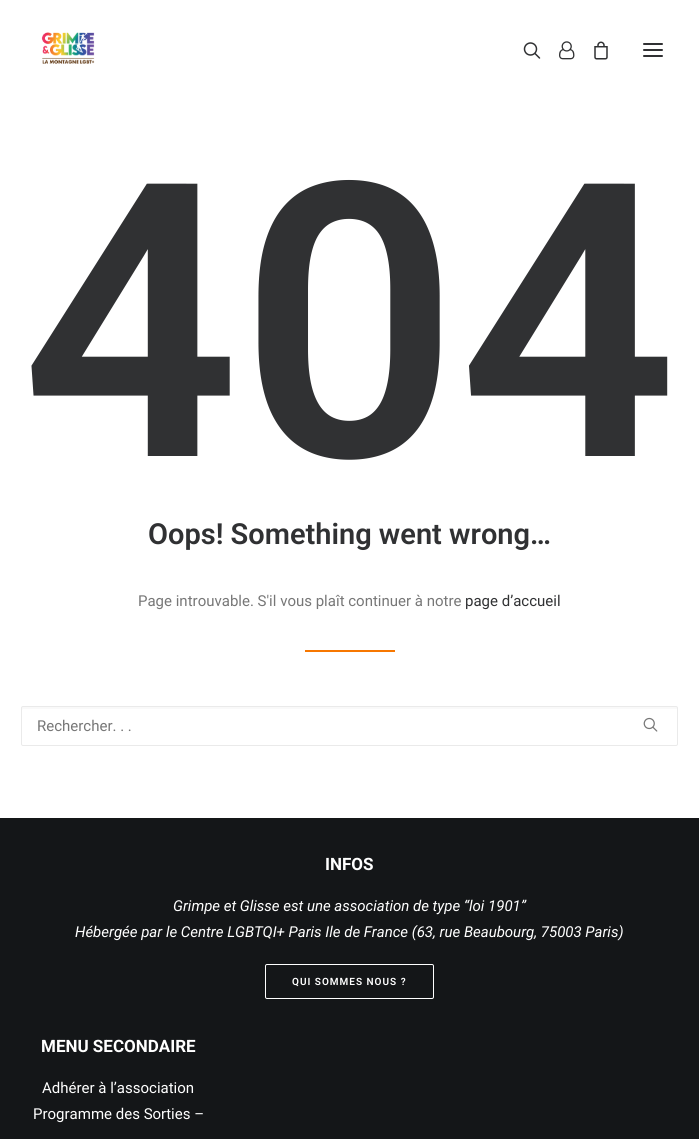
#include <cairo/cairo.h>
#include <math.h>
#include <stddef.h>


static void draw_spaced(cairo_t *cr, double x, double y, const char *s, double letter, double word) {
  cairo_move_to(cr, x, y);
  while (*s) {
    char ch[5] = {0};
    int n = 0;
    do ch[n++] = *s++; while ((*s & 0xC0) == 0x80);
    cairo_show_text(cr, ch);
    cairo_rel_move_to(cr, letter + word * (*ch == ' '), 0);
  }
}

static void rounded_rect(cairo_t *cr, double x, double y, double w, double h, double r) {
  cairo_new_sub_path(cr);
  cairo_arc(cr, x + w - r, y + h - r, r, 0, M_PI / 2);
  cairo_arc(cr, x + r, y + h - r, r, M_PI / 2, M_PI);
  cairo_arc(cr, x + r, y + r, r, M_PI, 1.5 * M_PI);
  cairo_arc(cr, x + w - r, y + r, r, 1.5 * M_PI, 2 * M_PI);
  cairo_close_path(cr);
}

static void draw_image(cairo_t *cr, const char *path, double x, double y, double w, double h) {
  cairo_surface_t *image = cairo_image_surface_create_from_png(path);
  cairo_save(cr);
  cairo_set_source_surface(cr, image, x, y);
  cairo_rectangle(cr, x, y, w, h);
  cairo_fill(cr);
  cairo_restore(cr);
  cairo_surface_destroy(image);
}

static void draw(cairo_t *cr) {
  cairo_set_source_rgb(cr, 1, 1, 1);
  cairo_paint(cr);
  draw_image(cr, "images/1.png", 41, 32, 54, 32);
  draw_image(cr, "images/2.png", 523, 42, 18, 17);
  draw_image(cr, "images/3.png", 559, 41, 16, 19);
  draw_image(cr, "images/4.png", 594, 41, 14, 19);
  cairo_set_source_rgb(cr, 48 / 255.0, 49 / 255.0, 51 / 255.0);
  rounded_rect(cr, 643, 49, 20, 2, 1);
  cairo_fill(cr);
  rounded_rect(cr, 643, 43, 20, 2, 1);
  cairo_fill(cr);
  rounded_rect(cr, 643, 55, 20, 2, 1);
  cairo_fill(cr);
  cairo_set_source_rgb(cr, 247 / 255.0, 119 / 255.0, 0);
  cairo_rectangle(cr, 305, 650, 90, 2);
  cairo_fill(cr);
  cairo_set_source_rgb(cr, 249 / 255.0, 249 / 255.0, 249 / 255.0);
  cairo_new_path(cr);
  cairo_move_to(cr, 23, 709);
  cairo_line_to(cr, 677, 709);
  cairo_line_to(cr, 677, 707);
  cairo_line_to(cr, 23, 707);
  cairo_line_to(cr, 22, 707);
  cairo_line_to(cr, 22, 710);
  cairo_close_path(cr);
  cairo_fill(cr);
  rounded_rect(cr, 21.5, 706.5, 656, 39, 1.5);
  cairo_set_source_rgb(cr, 234 / 255.0, 234 / 255.0, 234 / 255.0);
  cairo_set_line_width(cr, 1);
  cairo_stroke(cr);
  draw_image(cr, "images/5.png", 643, 717, 15, 15);
  cairo_set_source_rgb(cr, 20 / 255.0, 22 / 255.0, 24 / 255.0);
  cairo_rectangle(cr, 0, 818, 699, 321);
  cairo_fill(cr);
  rounded_rect(cr, 265.5, 964.5, 168, 34, 1.5);
  cairo_set_source_rgb(cr, 1, 1, 1);
  cairo_stroke(cr);
  cairo_select_font_face(cr, "Roboto SemiBold", CAIRO_FONT_SLANT_NORMAL, CAIRO_FONT_WEIGHT_NORMAL);
  cairo_set_font_size(cr, 383);
  cairo_set_source_rgb(cr, 48 / 255.0, 49 / 255.0, 51 / 255.0);
  cairo_move_to(cr, 21, 456);
  cairo_show_text(cr, "404");
  cairo_set_font_size(cr, 29);
  cairo_move_to(cr, 148, 544);
  cairo_show_text(cr, "Oops! Something went wrong…");
  cairo_select_font_face(cr, "Roboto", CAIRO_FONT_SLANT_NORMAL, CAIRO_FONT_WEIGHT_NORMAL);
  cairo_set_font_size(cr, 15);
  cairo_set_source_rgb(cr, 119 / 255.0, 119 / 255.0, 119 / 255.0);
  cairo_move_to(cr, 138, 606);
  cairo_show_text(cr, "Page introuvable. S'il vous plaît continuer à notre");
  cairo_set_source_rgb(cr, 48 / 255.0, 49 / 255.0, 51 / 255.0);
  cairo_move_to(cr, 465, 606);
  cairo_show_text(cr, "page d’accueil");
  cairo_set_source_rgb(cr, 119 / 255.0, 119 / 255.0, 119 / 255.0);
  cairo_move_to(cr, 37, 731);
  cairo_show_text(cr, "Rechercher. . .");
  cairo_select_font_face(cr, "Roboto", CAIRO_FONT_SLANT_NORMAL, CAIRO_FONT_WEIGHT_BOLD);
  cairo_set_font_size(cr, 17);
  cairo_set_source_rgb(cr, 1, 1, 1);
  cairo_move_to(cr, 325, 870);
  cairo_show_text(cr, "INFOS");
  cairo_select_font_face(cr, "Roboto", CAIRO_FONT_SLANT_ITALIC, CAIRO_FONT_WEIGHT_NORMAL);
  cairo_set_font_size(cr, 15);
  cairo_move_to(cr, 173, 911);
  cairo_show_text(cr, "Grimpe et Glisse est une association de type “loi 1901”");
  cairo_move_to(cr, 75, 937);
  cairo_show_text(cr, "Hébergée par le Centre LGBTQI+ Paris Ile de France (63, rue Beaubourg, 75003 Paris)");
  cairo_select_font_face(cr, "Roboto SemiBold", CAIRO_FONT_SLANT_NORMAL, CAIRO_FONT_WEIGHT_NORMAL);
  cairo_set_font_size(cr, 10);
  draw_spaced(cr, 292, 985, "QUI SOMMES NOUS ?", 1, 0);
  cairo_select_font_face(cr, "Roboto", CAIRO_FONT_SLANT_NORMAL, CAIRO_FONT_WEIGHT_BOLD);
  cairo_set_font_size(cr, 17);
  cairo_move_to(cr, 41, 1052);
  cairo_show_text(cr, "MENU SECONDAIRE");
  cairo_select_font_face(cr, "Roboto", CAIRO_FONT_SLANT_NORMAL, CAIRO_FONT_WEIGHT_NORMAL);
  cairo_set_font_size(cr, 15);
  cairo_move_to(cr, 42, 1093);
  cairo_show_text(cr, "Adhérer à l’association");
  cairo_move_to(cr, 33, 1119);
  cairo_show_text(cr, "Programme des Sorties –");
}

int main(void) {
  cairo_surface_t *surface = cairo_image_surface_create(CAIRO_FORMAT_RGB24, 699, 1139);
  cairo_t *cr = cairo_create(surface);
  cairo_font_options_t *options = cairo_font_options_create();
  cairo_font_options_set_hint_metrics(options, CAIRO_HINT_METRICS_OFF);
  cairo_font_options_set_hint_style(options, CAIRO_HINT_STYLE_NONE);
  cairo_set_font_options(cr, options);
  cairo_set_miter_limit(cr, 4);
  draw(cr);
  cairo_surface_write_to_png(surface, "out.png");
  cairo_font_options_destroy(options);
  cairo_destroy(cr);
  cairo_surface_destroy(surface);
  return 0;
}
